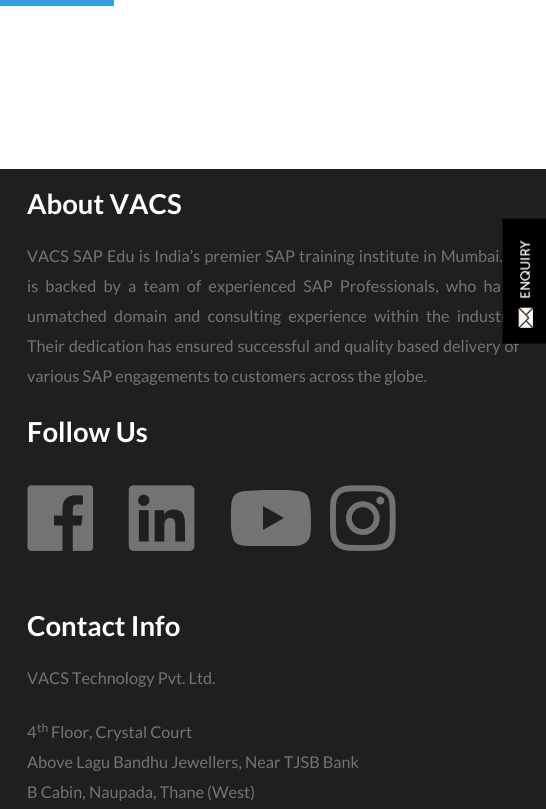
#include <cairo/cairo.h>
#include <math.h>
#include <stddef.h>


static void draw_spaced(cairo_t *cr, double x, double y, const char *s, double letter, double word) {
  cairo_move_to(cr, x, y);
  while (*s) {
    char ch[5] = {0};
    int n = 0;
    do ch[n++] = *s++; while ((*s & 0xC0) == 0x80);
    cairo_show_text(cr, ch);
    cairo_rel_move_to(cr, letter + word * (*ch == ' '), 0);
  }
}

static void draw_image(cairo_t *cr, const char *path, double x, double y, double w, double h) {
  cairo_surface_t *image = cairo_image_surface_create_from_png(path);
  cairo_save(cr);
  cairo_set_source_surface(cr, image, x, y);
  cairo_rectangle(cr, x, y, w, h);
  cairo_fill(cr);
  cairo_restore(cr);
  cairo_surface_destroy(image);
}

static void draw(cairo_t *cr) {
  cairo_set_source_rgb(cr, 1, 1, 1);
  cairo_paint(cr);
  cairo_set_source_rgb(cr, 50 / 255.0, 160 / 255.0, 219 / 255.0);
  cairo_rectangle(cr, 0, 0, 114, 6);
  cairo_fill(cr);
  cairo_set_source_rgb(cr, 31 / 255.0, 31 / 255.0, 31 / 255.0);
  cairo_rectangle(cr, 0, 169, 546, 640);
  cairo_fill(cr);
  draw_image(cr, "images/1.png", 27, 485, 67, 66);
  draw_image(cr, "images/2.png", 128, 485, 67, 66);
  cairo_set_source_rgb(cr, 115 / 255.0, 115 / 255.0, 115 / 255.0);
  cairo_new_path(cr);
  cairo_move_to(cr, 309, 499);
  cairo_curve_to(cr, 307, 490, 295, 491, 288, 490);
  cairo_line_to(cr, 264, 490);
  cairo_line_to(cr, 246, 491);
  cairo_curve_to(cr, 232, 492, 231, 499, 231, 512);
  cairo_curve_to(cr, 231, 520, 230, 529, 233, 538);
  cairo_curve_to(cr, 235, 547, 247, 546, 254, 546);
  cairo_line_to(cr, 278, 546);
  cairo_line_to(cr, 296, 546);
  cairo_curve_to(cr, 310, 544, 311, 537, 311, 524);
  cairo_curve_to(cr, 311, 516, 311, 507, 309, 499);
  cairo_close_path(cr);
  cairo_move_to(cr, 263, 530);
  cairo_line_to(cr, 263, 506);
  cairo_line_to(cr, 284, 518);
  cairo_close_path(cr);
  cairo_fill(cr);
  draw_image(cr, "images/3.png", 330, 485, 66, 66);
  cairo_select_font_face(cr, "Lato", CAIRO_FONT_SLANT_NORMAL, CAIRO_FONT_WEIGHT_BOLD);
  cairo_set_font_size(cr, 27.5);
  cairo_set_source_rgb(cr, 1, 1, 1);
  cairo_move_to(cr, 27, 214);
  cairo_show_text(cr, "About VACS");
  cairo_select_font_face(cr, "Lato", CAIRO_FONT_SLANT_NORMAL, CAIRO_FONT_WEIGHT_NORMAL);
  cairo_set_font_size(cr, 16.25);
  cairo_set_source_rgb(cr, 115 / 255.0, 115 / 255.0, 115 / 255.0);
  draw_spaced(cr, 27, 262, "VACS SAP Edu is India’s premier SAP training institute in Mumbai.", 0, 1.1);
  draw_spaced(cr, 27, 292, "is backed by a team of experienced SAP Professionals, who ha", 0, 4);
  draw_spaced(cr, 27, 322, "unmatched domain and consulting experience within the industr", 0, 4);
  draw_spaced(cr, 27, 352, "Their dedication has ensured successful and quality based delivery of", 0, 0.75);
  cairo_move_to(cr, 27, 382);
  cairo_show_text(cr, "various SAP engagements to customers across the globe.");
  cairo_select_font_face(cr, "Lato", CAIRO_FONT_SLANT_NORMAL, CAIRO_FONT_WEIGHT_BOLD);
  cairo_set_font_size(cr, 27.5);
  cairo_set_source_rgb(cr, 1, 1, 1);
  cairo_move_to(cr, 27, 442);
  cairo_show_text(cr, "Follow Us");
  cairo_move_to(cr, 27, 636);
  cairo_show_text(cr, "Contact Info");
  cairo_select_font_face(cr, "Lato", CAIRO_FONT_SLANT_NORMAL, CAIRO_FONT_WEIGHT_NORMAL);
  cairo_set_font_size(cr, 16.25);
  cairo_set_source_rgb(cr, 115 / 255.0, 115 / 255.0, 115 / 255.0);
  cairo_move_to(cr, 27, 684);
  cairo_show_text(cr, "VACS Technology Pvt. Ltd.");
  cairo_move_to(cr, 27, 738);
  cairo_show_text(cr, "4");
  cairo_set_font_size(cr, 12);
  cairo_move_to(cr, 37, 732);
  cairo_show_text(cr, "th");
  cairo_set_font_size(cr, 16.25);
  cairo_move_to(cr, 51, 738);
  cairo_show_text(cr, "Floor, Crystal Court");
  cairo_move_to(cr, 27, 768);
  cairo_show_text(cr, "Above Lagu Bandhu Jewellers, Near TJSB Bank");
  cairo_move_to(cr, 27, 798);
  cairo_show_text(cr, "B Cabin, Naupada, Thane (West)");
  draw_image(cr, "images/4.png", 502, 218, 44, 126);
}

int main(void) {
  cairo_surface_t *surface = cairo_image_surface_create(CAIRO_FORMAT_RGB24, 546, 809);
  cairo_t *cr = cairo_create(surface);
  cairo_font_options_t *options = cairo_font_options_create();
  cairo_font_options_set_hint_metrics(options, CAIRO_HINT_METRICS_OFF);
  cairo_font_options_set_hint_style(options, CAIRO_HINT_STYLE_NONE);
  cairo_set_font_options(cr, options);
  cairo_set_miter_limit(cr, 4);
  draw(cr);
  cairo_surface_write_to_png(surface, "out.png");
  cairo_font_options_destroy(options);
  cairo_destroy(cr);
  cairo_surface_destroy(surface);
  return 0;
}
